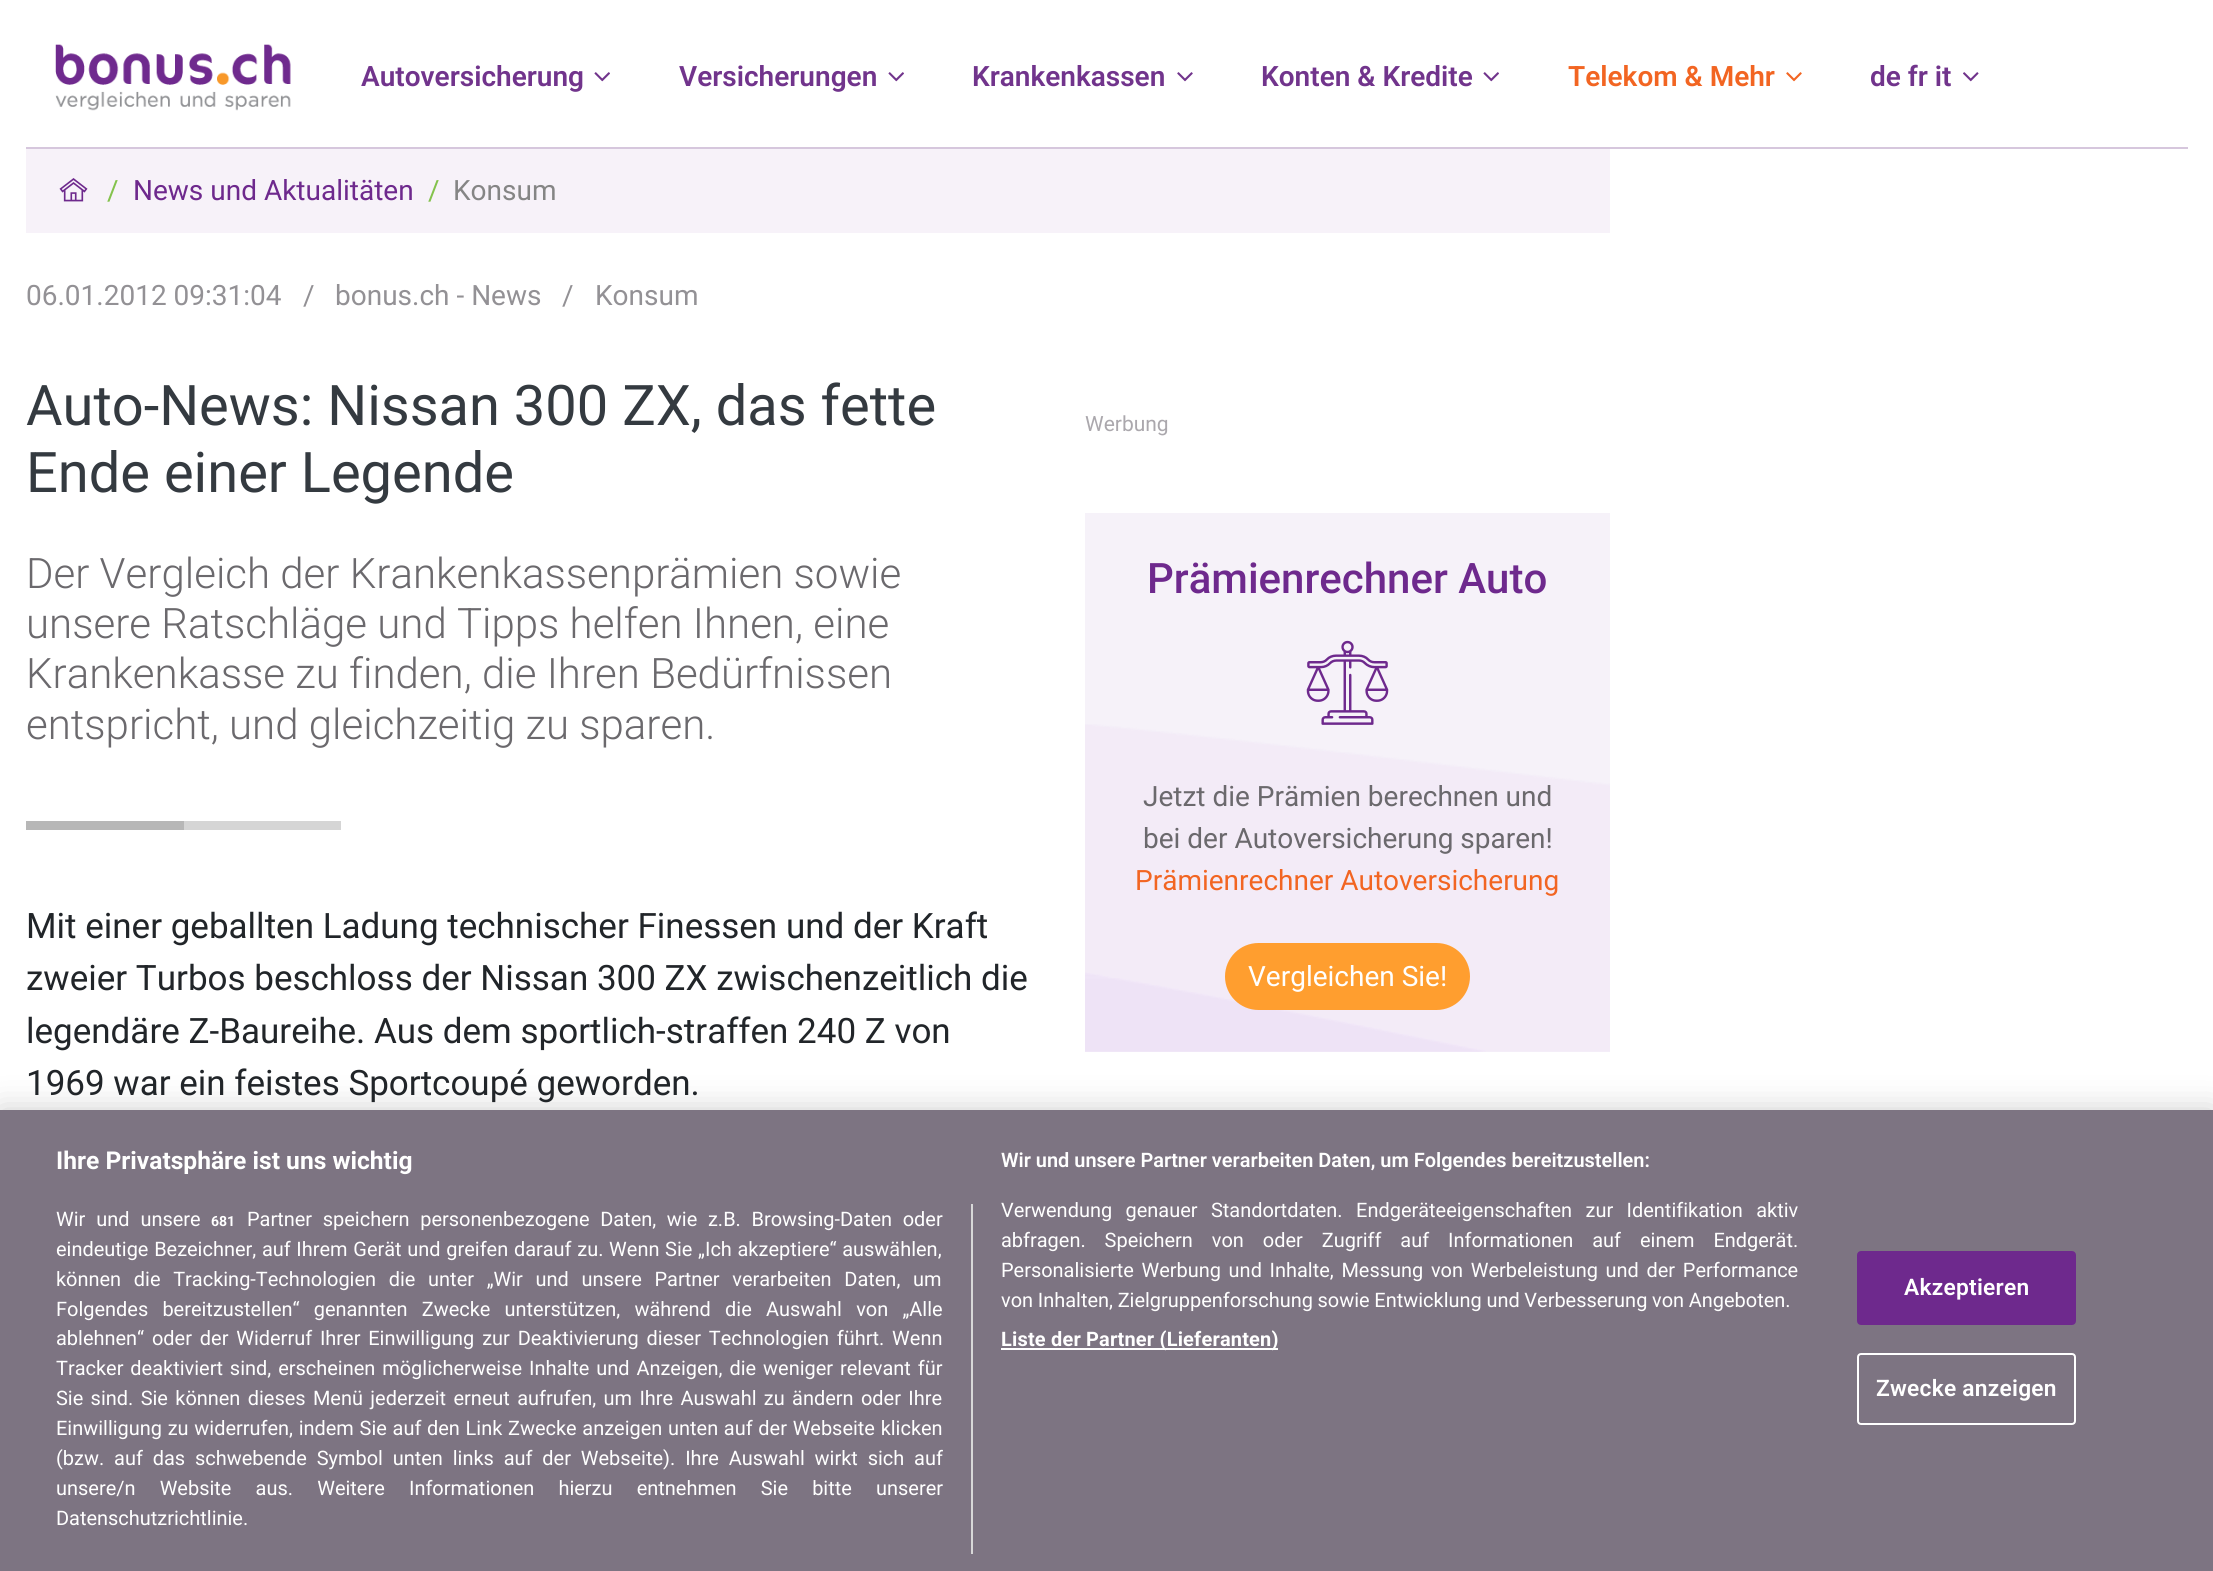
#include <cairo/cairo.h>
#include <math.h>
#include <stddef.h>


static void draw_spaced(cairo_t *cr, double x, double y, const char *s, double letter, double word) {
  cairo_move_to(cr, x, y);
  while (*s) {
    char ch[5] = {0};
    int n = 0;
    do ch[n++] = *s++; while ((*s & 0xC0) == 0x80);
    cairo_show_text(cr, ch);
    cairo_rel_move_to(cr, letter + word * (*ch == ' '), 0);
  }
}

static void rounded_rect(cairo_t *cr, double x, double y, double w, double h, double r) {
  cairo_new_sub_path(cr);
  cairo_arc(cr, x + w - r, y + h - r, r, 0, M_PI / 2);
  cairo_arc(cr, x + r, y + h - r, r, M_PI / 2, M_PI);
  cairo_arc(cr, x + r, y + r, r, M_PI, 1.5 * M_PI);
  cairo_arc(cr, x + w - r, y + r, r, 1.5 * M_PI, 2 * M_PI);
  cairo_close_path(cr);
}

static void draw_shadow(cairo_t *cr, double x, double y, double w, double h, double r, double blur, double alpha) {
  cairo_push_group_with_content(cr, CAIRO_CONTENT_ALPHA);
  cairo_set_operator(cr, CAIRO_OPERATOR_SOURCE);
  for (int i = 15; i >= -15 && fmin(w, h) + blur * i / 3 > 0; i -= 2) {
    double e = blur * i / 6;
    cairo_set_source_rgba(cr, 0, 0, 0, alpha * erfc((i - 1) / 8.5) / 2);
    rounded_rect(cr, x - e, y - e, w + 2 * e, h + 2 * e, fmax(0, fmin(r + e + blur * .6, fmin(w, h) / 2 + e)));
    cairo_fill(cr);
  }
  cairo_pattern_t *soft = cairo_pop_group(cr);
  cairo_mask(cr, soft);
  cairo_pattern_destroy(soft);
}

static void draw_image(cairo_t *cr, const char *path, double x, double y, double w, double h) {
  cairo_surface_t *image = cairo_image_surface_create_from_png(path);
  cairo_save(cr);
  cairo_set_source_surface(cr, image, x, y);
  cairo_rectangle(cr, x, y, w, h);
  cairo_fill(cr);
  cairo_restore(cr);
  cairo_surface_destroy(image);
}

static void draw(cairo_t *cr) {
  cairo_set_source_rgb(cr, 1, 1, 1);
  cairo_paint(cr);
  cairo_set_source_rgb(cr, 214 / 255.0, 199 / 255.0, 221 / 255.0);
  cairo_rectangle(cr, 26, 147, 2162, 2);
  cairo_fill(cr);
  draw_image(cr, "images/1.png", 55, 44, 236, 67);
  draw_image(cr, "images/2.png", 594, 72, 16, 10);
  draw_image(cr, "images/2.png", 888, 72, 16, 10);
  draw_image(cr, "images/3.png", 1177, 72, 16, 10);
  draw_image(cr, "images/2.png", 1483, 72, 16, 10);
  draw_image(cr, "images/4.png", 1786, 72, 16, 10);
  draw_image(cr, "images/5.png", 1963, 72, 16, 10);
  cairo_set_source_rgb(cr, 247 / 255.0, 242 / 255.0, 249 / 255.0);
  cairo_rectangle(cr, 26, 149, 1584, 84);
  cairo_fill(cr);
  draw_image(cr, "images/6.png", 59, 178, 29, 24);
  cairo_set_source_rgb(cr, 213 / 255.0, 213 / 255.0, 213 / 255.0);
  cairo_rectangle(cr, 184, 821, 157, 9);
  cairo_fill(cr);
  cairo_set_source_rgb(cr, 183 / 255.0, 183 / 255.0, 183 / 255.0);
  cairo_rectangle(cr, 26, 821, 158, 9);
  cairo_fill(cr);
  cairo_set_source_rgb(cr, 246 / 255.0, 242 / 255.0, 249 / 255.0);
  cairo_rectangle(cr, 1085, 513, 525, 539);
  cairo_fill(cr);
  draw_image(cr, "images/7.png", 1085, 724, 525, 328);
  draw_image(cr, "images/8.png", 1306, 640, 83, 85);
  cairo_set_source_rgb(cr, 1, 158 / 255.0, 47 / 255.0);
  rounded_rect(cr, 1226, 944, 243, 65, 32.5);
  cairo_fill_preserve(cr);
  cairo_stroke(cr);
  cairo_set_source_rgb(cr, 0, 0, 0);
  draw_shadow(cr, 0, 1110, 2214, 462, 0, 16, 0.2);
  cairo_set_source_rgb(cr, 125 / 255.0, 116 / 255.0, 130 / 255.0);
  cairo_rectangle(cr, 0, 1110, 2213, 461);
  cairo_fill(cr);
  cairo_set_source_rgb(cr, 1, 1, 1);
  cairo_rectangle(cr, 1001, 1348, 277, 2);
  cairo_fill(cr);
  cairo_set_source_rgb(cr, 216 / 255.0, 216 / 255.0, 216 / 255.0);
  cairo_rectangle(cr, 971, 1204, 2, 350);
  cairo_fill(cr);
  cairo_set_source_rgb(cr, 110 / 255.0, 41 / 255.0, 141 / 255.0);
  rounded_rect(cr, 1858, 1252, 217, 72, 3);
  cairo_fill_preserve(cr);
  cairo_stroke(cr);
  rounded_rect(cr, 1858, 1354, 217, 70, 3);
  cairo_set_source_rgb(cr, 1, 1, 1);
  cairo_stroke(cr);
  cairo_select_font_face(cr, "Roboto SemiBold", CAIRO_FONT_SLANT_NORMAL, CAIRO_FONT_WEIGHT_NORMAL);
  cairo_set_font_size(cr, 28);
  cairo_set_source_rgb(cr, 113 / 255.0, 52 / 255.0, 140 / 255.0);
  cairo_move_to(cr, 361, 86);
  cairo_show_text(cr, "Autoversicherung");
  cairo_move_to(cr, 679, 86);
  cairo_show_text(cr, "Versicherungen");
  cairo_move_to(cr, 972, 86);
  cairo_show_text(cr, "Krankenkassen");
  cairo_move_to(cr, 1261, 86);
  cairo_show_text(cr, "Konten & Kredite");
  cairo_set_source_rgb(cr, 242 / 255.0, 101 / 255.0, 34 / 255.0);
  cairo_move_to(cr, 1568, 86);
  cairo_show_text(cr, "Telekom & Mehr");
  cairo_set_source_rgb(cr, 113 / 255.0, 52 / 255.0, 140 / 255.0);
  cairo_move_to(cr, 1870, 86);
  cairo_show_text(cr, "de fr it");
  cairo_select_font_face(cr, "Roboto", CAIRO_FONT_SLANT_NORMAL, CAIRO_FONT_WEIGHT_NORMAL);
  cairo_set_source_rgb(cr, 132 / 255.0, 194 / 255.0, 77 / 255.0);
  cairo_move_to(cr, 107, 200);
  cairo_show_text(cr, "/");
  cairo_set_source_rgb(cr, 110 / 255.0, 41 / 255.0, 141 / 255.0);
  cairo_move_to(cr, 133, 200);
  cairo_show_text(cr, "News und Aktualitäten");
  cairo_set_source_rgb(cr, 132 / 255.0, 194 / 255.0, 77 / 255.0);
  cairo_move_to(cr, 428, 200);
  cairo_show_text(cr, "/");
  cairo_set_source_rgb(cr, 133 / 255.0, 133 / 255.0, 133 / 255.0);
  cairo_move_to(cr, 453, 200);
  cairo_show_text(cr, "Konsum");
  cairo_set_source_rgb(cr, 147 / 255.0, 145 / 255.0, 149 / 255.0);
  cairo_move_to(cr, 26, 305);
  cairo_show_text(cr, "06.01.2012 09:31:04");
  cairo_move_to(cr, 303, 305);
  cairo_show_text(cr, "/");
  cairo_move_to(cr, 335, 305);
  cairo_show_text(cr, "bonus.ch - News");
  cairo_move_to(cr, 562, 305);
  cairo_show_text(cr, "/");
  cairo_move_to(cr, 595, 305);
  cairo_show_text(cr, "Konsum");
  cairo_set_font_size(cr, 56);
  cairo_set_source_rgb(cr, 52 / 255.0, 58 / 255.0, 64 / 255.0);
  cairo_move_to(cr, 26, 425);
  cairo_show_text(cr, "Auto-News: Nissan 300 ZX, das fette");
  cairo_move_to(cr, 26, 492);
  cairo_show_text(cr, "Ende einer Legende");
  cairo_select_font_face(cr, "Roboto Light", CAIRO_FONT_SLANT_NORMAL, CAIRO_FONT_WEIGHT_NORMAL);
  cairo_set_font_size(cr, 42);
  cairo_set_source_rgb(cr, 107 / 255.0, 105 / 255.0, 109 / 255.0);
  cairo_move_to(cr, 26, 588);
  cairo_show_text(cr, "Der Vergleich der Krankenkassenprämien sowie");
  cairo_move_to(cr, 26, 638);
  cairo_show_text(cr, "unsere Ratschläge und Tipps helfen Ihnen, eine");
  cairo_move_to(cr, 26, 688);
  cairo_show_text(cr, "Krankenkasse zu finden, die Ihren Bedürfnissen");
  cairo_move_to(cr, 26, 739);
  cairo_show_text(cr, "entspricht, und gleichzeitig zu sparen.");
  cairo_select_font_face(cr, "Roboto", CAIRO_FONT_SLANT_NORMAL, CAIRO_FONT_WEIGHT_NORMAL);
  cairo_set_font_size(cr, 35);
  cairo_set_source_rgb(cr, 33 / 255.0, 37 / 255.0, 41 / 255.0);
  cairo_move_to(cr, 26, 938);
  cairo_show_text(cr, "Mit einer geballten Ladung technischer Finessen und der Kraft");
  cairo_move_to(cr, 26, 990);
  cairo_show_text(cr, "zweier Turbos beschloss der Nissan 300 ZX zwischenzeitlich die");
  cairo_move_to(cr, 26, 1043);
  cairo_show_text(cr, "legendäre Z-Baureihe. Aus dem sportlich-straffen 240 Z von");
  cairo_move_to(cr, 26, 1095);
  cairo_show_text(cr, "1969 war ein feistes Sportcoupé geworden.");
  cairo_set_font_size(cr, 21);
  cairo_set_source_rgb(cr, 171 / 255.0, 168 / 255.0, 173 / 255.0);
  cairo_move_to(cr, 1085, 431);
  cairo_show_text(cr, "Werbung");
  cairo_select_font_face(cr, "Roboto Medium", CAIRO_FONT_SLANT_NORMAL, CAIRO_FONT_WEIGHT_NORMAL);
  cairo_set_font_size(cr, 42);
  cairo_set_source_rgb(cr, 110 / 255.0, 41 / 255.0, 141 / 255.0);
  cairo_move_to(cr, 1147, 593);
  cairo_show_text(cr, "Prämienrechner Auto");
  cairo_select_font_face(cr, "Roboto", CAIRO_FONT_SLANT_NORMAL, CAIRO_FONT_WEIGHT_NORMAL);
  cairo_set_font_size(cr, 28);
  cairo_set_source_rgb(cr, 107 / 255.0, 105 / 255.0, 109 / 255.0);
  cairo_move_to(cr, 1143, 806);
  cairo_show_text(cr, "Jetzt die Prämien berechnen und");
  cairo_move_to(cr, 1143, 848);
  cairo_show_text(cr, "bei der Autoversicherung sparen!");
  cairo_set_source_rgb(cr, 242 / 255.0, 101 / 255.0, 34 / 255.0);
  cairo_move_to(cr, 1135, 890);
  cairo_show_text(cr, "Prämienrechner Autoversicherung");
  cairo_set_source_rgb(cr, 1, 1, 1);
  cairo_move_to(cr, 1248, 986);
  cairo_show_text(cr, "Vergleichen Sie!");
  cairo_select_font_face(cr, "Roboto", CAIRO_FONT_SLANT_NORMAL, CAIRO_FONT_WEIGHT_BOLD);
  cairo_set_font_size(cr, 24.6);
  cairo_move_to(cr, 56, 1169);
  cairo_show_text(cr, "Ihre Privatsphäre ist uns wichtig");
  cairo_select_font_face(cr, "Roboto SemiBold", CAIRO_FONT_SLANT_NORMAL, CAIRO_FONT_WEIGHT_NORMAL);
  cairo_set_font_size(cr, 19.95);
  cairo_move_to(cr, 1001, 1167);
  cairo_show_text(cr, "Wir und unsere Partner verarbeiten Daten, um Folgendes bereitzustellen:");
  cairo_select_font_face(cr, "Roboto", CAIRO_FONT_SLANT_NORMAL, CAIRO_FONT_WEIGHT_NORMAL);
  draw_spaced(cr, 1001, 1217, "Verwendung genauer Standortdaten. Endgeräteeigenschaften zur Identifikation aktiv", 0, 8.5);
  draw_spaced(cr, 1001, 1247, "abfragen. Speichern von oder Zugriff auf Informationen auf einem Endgerät.", 0, 14);
  draw_spaced(cr, 1001, 1277, "Personalisierte Werbung und Inhalte, Messung von Werbeleistung und der Performance", 0, 2.75);
  draw_spaced(cr, 1001, 1307, "von Inhalten, Zielgruppenforschung sowie Entwicklung und Verbesserung von Angeboten.", 0, -0.25);
  cairo_select_font_face(cr, "Roboto", CAIRO_FONT_SLANT_NORMAL, CAIRO_FONT_WEIGHT_BOLD);
  draw_spaced(cr, 1001, 1346, "Liste der Partner (Lieferanten)", 0.2, 0);
  cairo_select_font_face(cr, "Roboto", CAIRO_FONT_SLANT_NORMAL, CAIRO_FONT_WEIGHT_NORMAL);
  draw_spaced(cr, 56, 1226, "Wir und unsere", 0, 6);
  cairo_select_font_face(cr, "Roboto", CAIRO_FONT_SLANT_NORMAL, CAIRO_FONT_WEIGHT_BOLD);
  cairo_set_font_size(cr, 14);
  cairo_move_to(cr, 211, 1226);
  cairo_show_text(cr, "681");
  cairo_select_font_face(cr, "Roboto", CAIRO_FONT_SLANT_NORMAL, CAIRO_FONT_WEIGHT_NORMAL);
  cairo_set_font_size(cr, 19.95);
  draw_spaced(cr, 247, 1226, "Partner speichern personenbezogene Daten, wie z.B. Browsing-Daten oder", 0, 5.75);
  draw_spaced(cr, 56, 1256, "eindeutige Bezeichner, auf Ihrem Gerät und greifen darauf zu. Wenn Sie „Ich akzeptiere“ auswählen,", 0, 0.75);
  draw_spaced(cr, 56, 1286, "können die Tracking-Technologien die unter „Wir und unsere Partner verarbeiten Daten, um", 0, 7.75);
  draw_spaced(cr, 56, 1316, "Folgendes bereitzustellen“ genannten Zwecke unterstützen, während die Auswahl von „Alle", 0, 9.25);
  draw_spaced(cr, 56, 1345, "ablehnen“ oder der Widerruf Ihrer Einwilligung zur Deaktivierung dieser Technologien führt. Wenn", 0, 2.9);
  draw_spaced(cr, 56, 1375, "Tracker deaktiviert sind, erscheinen möglicherweise Inhalte und Anzeigen, die weniger relevant für", 0, 2);
  draw_spaced(cr, 56, 1405, "Sie sind. Sie können dieses Menü jederzeit erneut aufrufen, um Ihre Auswahl zu ändern oder Ihre", 0, 2.4);
  draw_spaced(cr, 56, 1435, "Einwilligung zu widerrufen, indem Sie auf den Link Zwecke anzeigen unten auf der Webseite klicken", 0, 0.75);
  draw_spaced(cr, 56, 1465, "(bzw. auf das schwebende Symbol unten links auf der Webseite). Ihre Auswahl wirkt sich auf", 0, 4.9);
  draw_spaced(cr, 56, 1495, "unsere/n Website aus. Weitere Informationen hierzu entnehmen Sie bitte unserer", 0, 19.25);
  cairo_move_to(cr, 56, 1525);
  cairo_show_text(cr, "Datenschutzrichtlinie.");
  cairo_select_font_face(cr, "Roboto SemiBold", CAIRO_FONT_SLANT_NORMAL, CAIRO_FONT_WEIGHT_NORMAL);
  cairo_set_font_size(cr, 22.75);
  draw_spaced(cr, 1904, 1295, "Akzeptieren", 0.25, 0);
  draw_spaced(cr, 1876, 1396, "Zwecke anzeigen", 0.25, 0);
}

int main(void) {
  cairo_surface_t *surface = cairo_image_surface_create(CAIRO_FORMAT_RGB24, 2213, 1571);
  cairo_t *cr = cairo_create(surface);
  cairo_font_options_t *options = cairo_font_options_create();
  cairo_font_options_set_hint_metrics(options, CAIRO_HINT_METRICS_OFF);
  cairo_font_options_set_hint_style(options, CAIRO_HINT_STYLE_NONE);
  cairo_set_font_options(cr, options);
  cairo_set_miter_limit(cr, 4);
  draw(cr);
  cairo_surface_write_to_png(surface, "out.png");
  cairo_font_options_destroy(options);
  cairo_destroy(cr);
  cairo_surface_destroy(surface);
  return 0;
}
